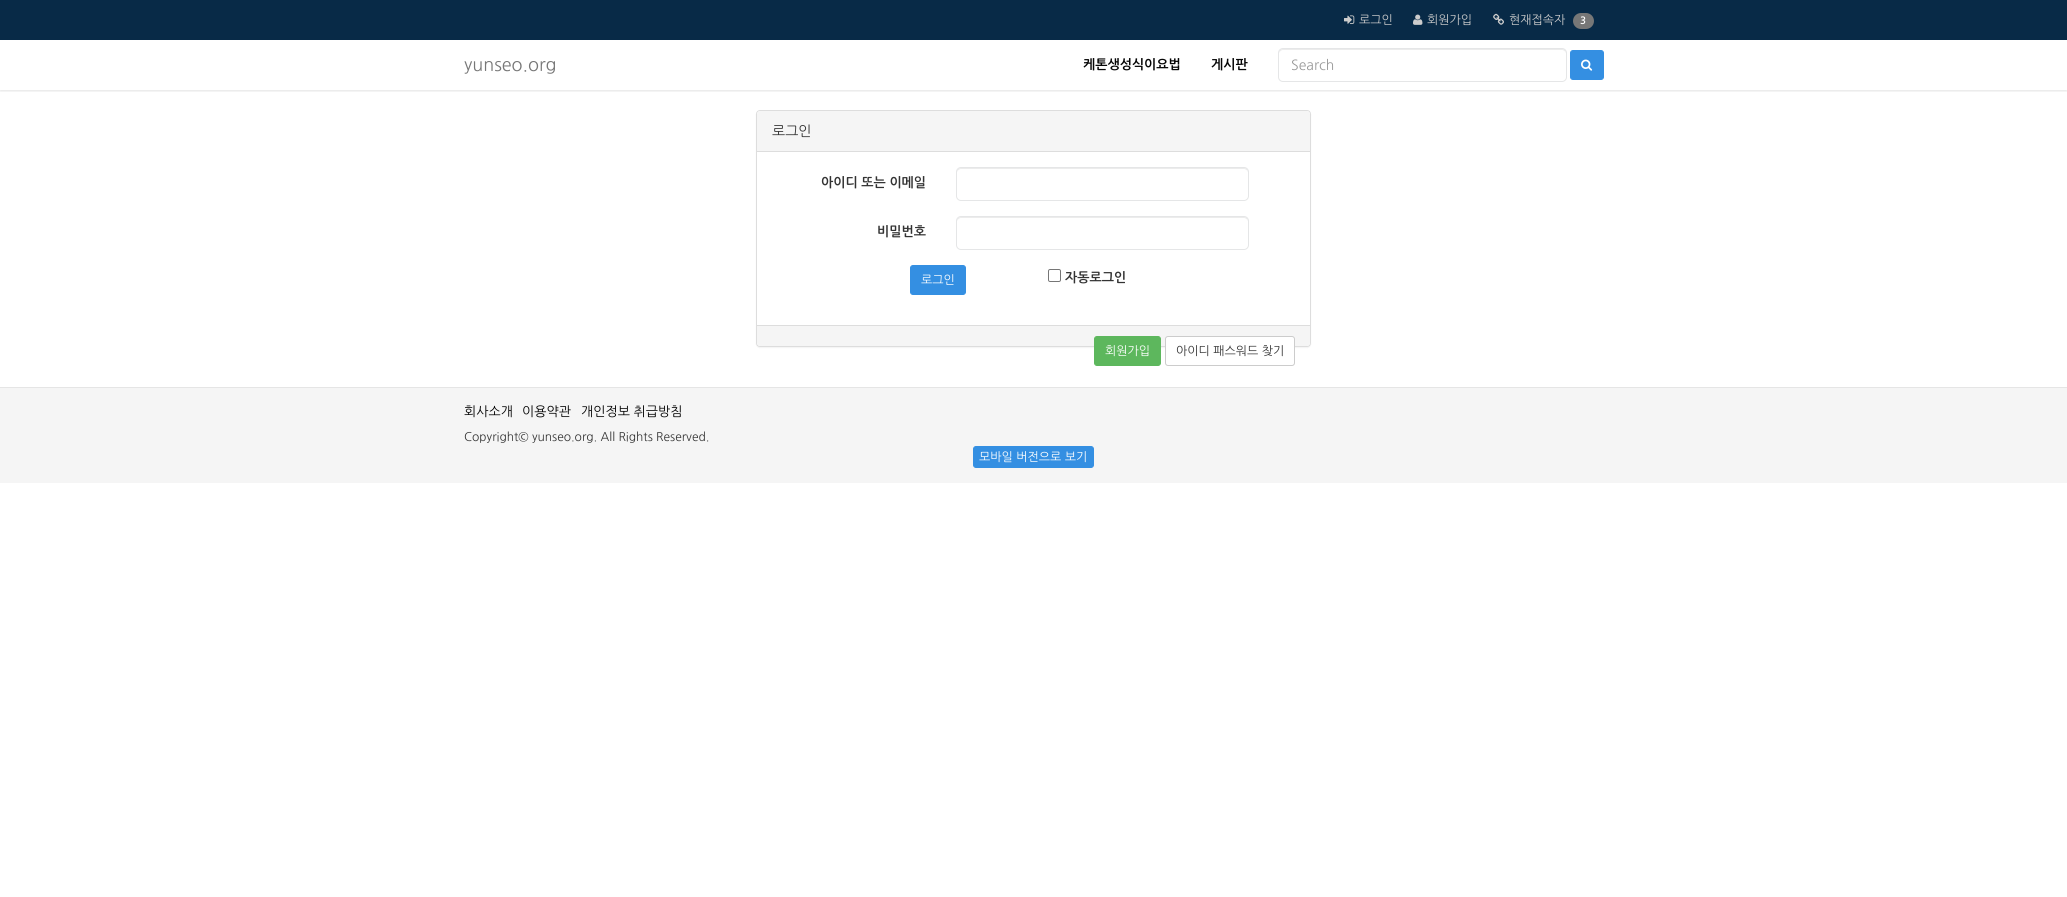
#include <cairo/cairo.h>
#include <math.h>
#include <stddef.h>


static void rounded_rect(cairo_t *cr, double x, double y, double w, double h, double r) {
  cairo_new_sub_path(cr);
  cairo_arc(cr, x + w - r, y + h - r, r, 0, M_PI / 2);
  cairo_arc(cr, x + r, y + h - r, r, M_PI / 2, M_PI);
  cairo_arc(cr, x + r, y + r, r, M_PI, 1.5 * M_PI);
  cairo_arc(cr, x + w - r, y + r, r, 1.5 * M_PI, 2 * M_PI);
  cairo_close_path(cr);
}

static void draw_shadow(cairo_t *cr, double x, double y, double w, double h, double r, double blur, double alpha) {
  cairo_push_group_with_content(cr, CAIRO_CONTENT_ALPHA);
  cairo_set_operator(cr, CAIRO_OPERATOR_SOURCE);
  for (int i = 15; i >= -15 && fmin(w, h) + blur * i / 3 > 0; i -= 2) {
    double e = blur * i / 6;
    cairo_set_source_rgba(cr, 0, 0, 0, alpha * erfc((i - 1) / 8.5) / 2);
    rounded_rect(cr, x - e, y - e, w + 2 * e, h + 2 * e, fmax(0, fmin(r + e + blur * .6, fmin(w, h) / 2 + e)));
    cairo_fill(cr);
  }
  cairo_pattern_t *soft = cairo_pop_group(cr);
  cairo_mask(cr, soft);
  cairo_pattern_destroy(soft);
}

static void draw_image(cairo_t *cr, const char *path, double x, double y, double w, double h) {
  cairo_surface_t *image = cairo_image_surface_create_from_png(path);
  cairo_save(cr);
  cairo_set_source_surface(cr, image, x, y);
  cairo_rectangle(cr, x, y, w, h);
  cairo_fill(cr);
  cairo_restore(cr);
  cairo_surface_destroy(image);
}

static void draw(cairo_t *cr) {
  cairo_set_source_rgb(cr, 1, 1, 1);
  cairo_paint(cr);
  cairo_set_source_rgb(cr, 8 / 255.0, 42 / 255.0, 71 / 255.0);
  cairo_rectangle(cr, 0, 0, 2067, 40);
  cairo_fill(cr);
  draw_image(cr, "images/1.png", 1344, 15, 11, 9);
  draw_image(cr, "images/2.png", 1413, 14, 10, 11);
  draw_image(cr, "images/3.png", 1493, 13, 11, 12);
  cairo_set_source_rgb(cr, 119 / 255.0, 119 / 255.0, 119 / 255.0);
  rounded_rect(cr, 1573, 13, 21, 16, 8);
  cairo_fill(cr);
  cairo_save(cr);
  cairo_rectangle(cr, 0, 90, 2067, 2);
  cairo_clip(cr);
  cairo_set_source_rgb(cr, 0, 0, 0);
  draw_shadow(cr, 0, 41, 2067, 50, 0, 1.5, 0.12);
  cairo_restore(cr);
  cairo_set_source_rgb(cr, 236 / 255.0, 236 / 255.0, 236 / 255.0);
  cairo_new_path(cr);
  cairo_move_to(cr, 1283, 50);
  cairo_line_to(cr, 1562, 50);
  cairo_curve_to(cr, 1564, 50, 1566, 52, 1566, 54);
  cairo_curve_to(cr, 1566, 51, 1565, 49, 1562, 49);
  cairo_line_to(cr, 1283, 49);
  cairo_curve_to(cr, 1280, 49, 1279, 51, 1279, 54);
  cairo_curve_to(cr, 1279, 52, 1281, 50, 1283, 50);
  cairo_close_path(cr);
  cairo_fill(cr);
  rounded_rect(cr, 1278.5, 48.5, 288, 33, 4.5);
  cairo_set_source_rgb(cr, 229 / 255.0, 230 / 255.0, 231 / 255.0);
  cairo_set_line_width(cr, 1);
  cairo_stroke(cr);
  cairo_set_source_rgb(cr, 52 / 255.0, 143 / 255.0, 226 / 255.0);
  rounded_rect(cr, 1570.5, 50.5, 33, 29, 2.5);
  cairo_fill_preserve(cr);
  cairo_stroke(cr);
  draw_image(cr, "images/4.png", 1581, 59, 12, 12);
  cairo_set_source_rgb(cr, 0, 0, 0);
  draw_shadow(cr, 756, 111, 555, 237, 4, 0.5, 0.05);
  cairo_set_source_rgb(cr, 1, 1, 1);
  rounded_rect(cr, 756.5, 110.5, 554, 236, 3.5);
  cairo_fill_preserve(cr);
  cairo_set_source_rgb(cr, 221 / 255.0, 221 / 255.0, 221 / 255.0);
  cairo_stroke(cr);
  cairo_set_source_rgb(cr, 245 / 255.0, 245 / 255.0, 245 / 255.0);
  cairo_new_path(cr);
  cairo_move_to(cr, 760, 111);
  cairo_line_to(cr, 1307, 111);
  cairo_curve_to(cr, 1308.5, 111, 1310, 112.5, 1310, 114);
  cairo_line_to(cr, 1310, 152);
  cairo_line_to(cr, 757, 152);
  cairo_line_to(cr, 757, 114);
  cairo_curve_to(cr, 757, 112.5, 758.5, 111, 760, 111);
  cairo_close_path(cr);
  cairo_fill(cr);
  cairo_set_source_rgb(cr, 221 / 255.0, 221 / 255.0, 221 / 255.0);
  cairo_rectangle(cr, 757, 151, 553, 1);
  cairo_fill(cr);
  cairo_set_source_rgb(cr, 236 / 255.0, 236 / 255.0, 236 / 255.0);
  cairo_new_path(cr);
  cairo_move_to(cr, 961, 169);
  cairo_line_to(cr, 1244, 169);
  cairo_curve_to(cr, 1246, 169, 1248, 171, 1248, 173);
  cairo_curve_to(cr, 1248, 170, 1247, 168, 1244, 168);
  cairo_line_to(cr, 961, 168);
  cairo_curve_to(cr, 958, 168, 957, 170, 957, 173);
  cairo_curve_to(cr, 957, 171, 959, 169, 961, 169);
  cairo_close_path(cr);
  cairo_fill(cr);
  rounded_rect(cr, 956.5, 167.5, 292, 33, 4.5);
  cairo_set_source_rgb(cr, 229 / 255.0, 230 / 255.0, 231 / 255.0);
  cairo_stroke(cr);
  cairo_set_source_rgb(cr, 236 / 255.0, 236 / 255.0, 236 / 255.0);
  cairo_new_path(cr);
  cairo_move_to(cr, 961, 218);
  cairo_line_to(cr, 1244, 218);
  cairo_curve_to(cr, 1246, 218, 1248, 220, 1248, 222);
  cairo_curve_to(cr, 1248, 219, 1247, 217, 1244, 217);
  cairo_line_to(cr, 961, 217);
  cairo_curve_to(cr, 958, 217, 957, 219, 957, 222);
  cairo_curve_to(cr, 957, 220, 959, 218, 961, 218);
  cairo_close_path(cr);
  cairo_fill(cr);
  rounded_rect(cr, 956.5, 216.5, 292, 33, 4.5);
  cairo_set_source_rgb(cr, 229 / 255.0, 230 / 255.0, 231 / 255.0);
  cairo_stroke(cr);
  cairo_set_source_rgb(cr, 52 / 255.0, 143 / 255.0, 226 / 255.0);
  rounded_rect(cr, 910.5, 265.5, 55, 29, 2.5);
  cairo_fill_preserve(cr);
  cairo_stroke(cr);
  rounded_rect(cr, 1048.5, 269.5, 12, 12, 1.5);
  cairo_set_source_rgb(cr, 118 / 255.0, 118 / 255.0, 118 / 255.0);
  cairo_stroke(cr);
  cairo_set_source_rgb(cr, 245 / 255.0, 245 / 255.0, 245 / 255.0);
  cairo_new_path(cr);
  cairo_move_to(cr, 757, 325);
  cairo_line_to(cr, 1310, 325);
  cairo_line_to(cr, 1310, 343);
  cairo_curve_to(cr, 1310, 344.5, 1308.5, 346, 1307, 346);
  cairo_line_to(cr, 760, 346);
  cairo_curve_to(cr, 758.5, 346, 757, 344.5, 757, 343);
  cairo_close_path(cr);
  cairo_fill(cr);
  cairo_set_source_rgb(cr, 221 / 255.0, 221 / 255.0, 221 / 255.0);
  cairo_rectangle(cr, 757, 325, 553, 1);
  cairo_fill(cr);
  cairo_set_source_rgb(cr, 93 / 255.0, 183 / 255.0, 93 / 255.0);
  rounded_rect(cr, 1094.5, 336.5, 66, 29, 2.5);
  cairo_fill_preserve(cr);
  cairo_stroke(cr);
  cairo_set_source_rgb(cr, 1, 1, 1);
  rounded_rect(cr, 1165.5, 336.5, 129, 29, 2.5);
  cairo_fill_preserve(cr);
  cairo_set_source_rgb(cr, 204 / 255.0, 204 / 255.0, 204 / 255.0);
  cairo_stroke(cr);
  cairo_set_source_rgb(cr, 245 / 255.0, 245 / 255.0, 245 / 255.0);
  cairo_rectangle(cr, 0, 388, 2067, 95);
  cairo_fill(cr);
  cairo_set_source_rgb(cr, 229 / 255.0, 229 / 255.0, 229 / 255.0);
  cairo_rectangle(cr, 0, 387, 2067, 1);
  cairo_fill(cr);
  cairo_set_source_rgb(cr, 52 / 255.0, 143 / 255.0, 226 / 255.0);
  rounded_rect(cr, 973.5, 446.5, 120, 21, 2.5);
  cairo_fill_preserve(cr);
  cairo_stroke(cr);
  cairo_select_font_face(cr, "NanumGothic", CAIRO_FONT_SLANT_NORMAL, CAIRO_FONT_WEIGHT_NORMAL);
  cairo_set_font_size(cr, 12);
  cairo_set_source_rgb(cr, 204 / 255.0, 204 / 255.0, 204 / 255.0);
  cairo_move_to(cr, 1359, 24);
  cairo_show_text(cr, "로그인");
  cairo_move_to(cr, 1427, 24);
  cairo_show_text(cr, "회원가입");
  cairo_move_to(cr, 1509, 24);
  cairo_show_text(cr, "현재접속자");
  cairo_select_font_face(cr, "NanumGothic", CAIRO_FONT_SLANT_NORMAL, CAIRO_FONT_WEIGHT_BOLD);
  cairo_set_font_size(cr, 10);
  cairo_set_source_rgb(cr, 1, 1, 1);
  cairo_move_to(cr, 1580, 24);
  cairo_show_text(cr, "3");
  cairo_select_font_face(cr, "NanumGothic", CAIRO_FONT_SLANT_NORMAL, CAIRO_FONT_WEIGHT_NORMAL);
  cairo_set_font_size(cr, 18);
  cairo_set_source_rgb(cr, 119 / 255.0, 119 / 255.0, 119 / 255.0);
  cairo_move_to(cr, 464, 71);
  cairo_show_text(cr, "yunseo.org");
  cairo_select_font_face(cr, "NanumGothic", CAIRO_FONT_SLANT_NORMAL, CAIRO_FONT_WEIGHT_BOLD);
  cairo_set_font_size(cr, 13);
  cairo_set_source_rgb(cr, 6 / 255.0, 6 / 255.0, 6 / 255.0);
  cairo_move_to(cr, 1083, 69);
  cairo_show_text(cr, "케톤생성식이요법");
  cairo_move_to(cr, 1211, 69);
  cairo_show_text(cr, "게시판");
  cairo_select_font_face(cr, "NanumGothic", CAIRO_FONT_SLANT_NORMAL, CAIRO_FONT_WEIGHT_NORMAL);
  cairo_set_font_size(cr, 14);
  cairo_set_source_rgb(cr, 153 / 255.0, 153 / 255.0, 153 / 255.0);
  cairo_move_to(cr, 1291, 70);
  cairo_show_text(cr, "Search");
  cairo_set_source_rgb(cr, 51 / 255.0, 51 / 255.0, 51 / 255.0);
  cairo_move_to(cr, 772, 136);
  cairo_show_text(cr, "로그인");
  cairo_select_font_face(cr, "NanumGothic", CAIRO_FONT_SLANT_NORMAL, CAIRO_FONT_WEIGHT_BOLD);
  cairo_set_font_size(cr, 13);
  cairo_move_to(cr, 821, 187);
  cairo_show_text(cr, "아이디 또는 이메일");
  cairo_move_to(cr, 877, 236);
  cairo_show_text(cr, "비밀번호");
  cairo_select_font_face(cr, "NanumGothic", CAIRO_FONT_SLANT_NORMAL, CAIRO_FONT_WEIGHT_NORMAL);
  cairo_set_font_size(cr, 12);
  cairo_set_source_rgb(cr, 1, 1, 1);
  cairo_move_to(cr, 921, 284);
  cairo_show_text(cr, "로그인");
  cairo_select_font_face(cr, "NanumGothic", CAIRO_FONT_SLANT_NORMAL, CAIRO_FONT_WEIGHT_BOLD);
  cairo_set_font_size(cr, 13);
  cairo_set_source_rgb(cr, 51 / 255.0, 51 / 255.0, 51 / 255.0);
  cairo_move_to(cr, 1065, 282);
  cairo_show_text(cr, "자동로그인");
  cairo_select_font_face(cr, "NanumGothic", CAIRO_FONT_SLANT_NORMAL, CAIRO_FONT_WEIGHT_NORMAL);
  cairo_set_font_size(cr, 12);
  cairo_set_source_rgb(cr, 1, 1, 1);
  cairo_move_to(cr, 1105, 355);
  cairo_show_text(cr, "회원가입");
  cairo_set_source_rgb(cr, 51 / 255.0, 51 / 255.0, 51 / 255.0);
  cairo_move_to(cr, 1176, 355);
  cairo_show_text(cr, "아이디 패스워드 찾기");
  cairo_set_font_size(cr, 13);
  cairo_set_source_rgb(cr, 0, 0, 0);
  cairo_move_to(cr, 464, 416);
  cairo_show_text(cr, "회사소개");
  cairo_move_to(cr, 522, 416);
  cairo_show_text(cr, "이용약관");
  cairo_move_to(cr, 581, 416);
  cairo_show_text(cr, "개인정보 취급방침");
  cairo_set_font_size(cr, 12);
  cairo_set_source_rgb(cr, 51 / 255.0, 51 / 255.0, 51 / 255.0);
  cairo_move_to(cr, 464, 441);
  cairo_show_text(cr, "Copyright© yunseo.org. All Rights Reserved.");
  cairo_set_source_rgb(cr, 1, 1, 1);
  cairo_move_to(cr, 979, 461);
  cairo_show_text(cr, "모바일 버전으로 보기");
}

int main(void) {
  cairo_surface_t *surface = cairo_image_surface_create(CAIRO_FORMAT_RGB24, 2067, 897);
  cairo_t *cr = cairo_create(surface);
  cairo_font_options_t *options = cairo_font_options_create();
  cairo_font_options_set_hint_metrics(options, CAIRO_HINT_METRICS_OFF);
  cairo_font_options_set_hint_style(options, CAIRO_HINT_STYLE_NONE);
  cairo_set_font_options(cr, options);
  cairo_set_miter_limit(cr, 4);
  draw(cr);
  cairo_surface_write_to_png(surface, "out.png");
  cairo_font_options_destroy(options);
  cairo_destroy(cr);
  cairo_surface_destroy(surface);
  return 0;
}
